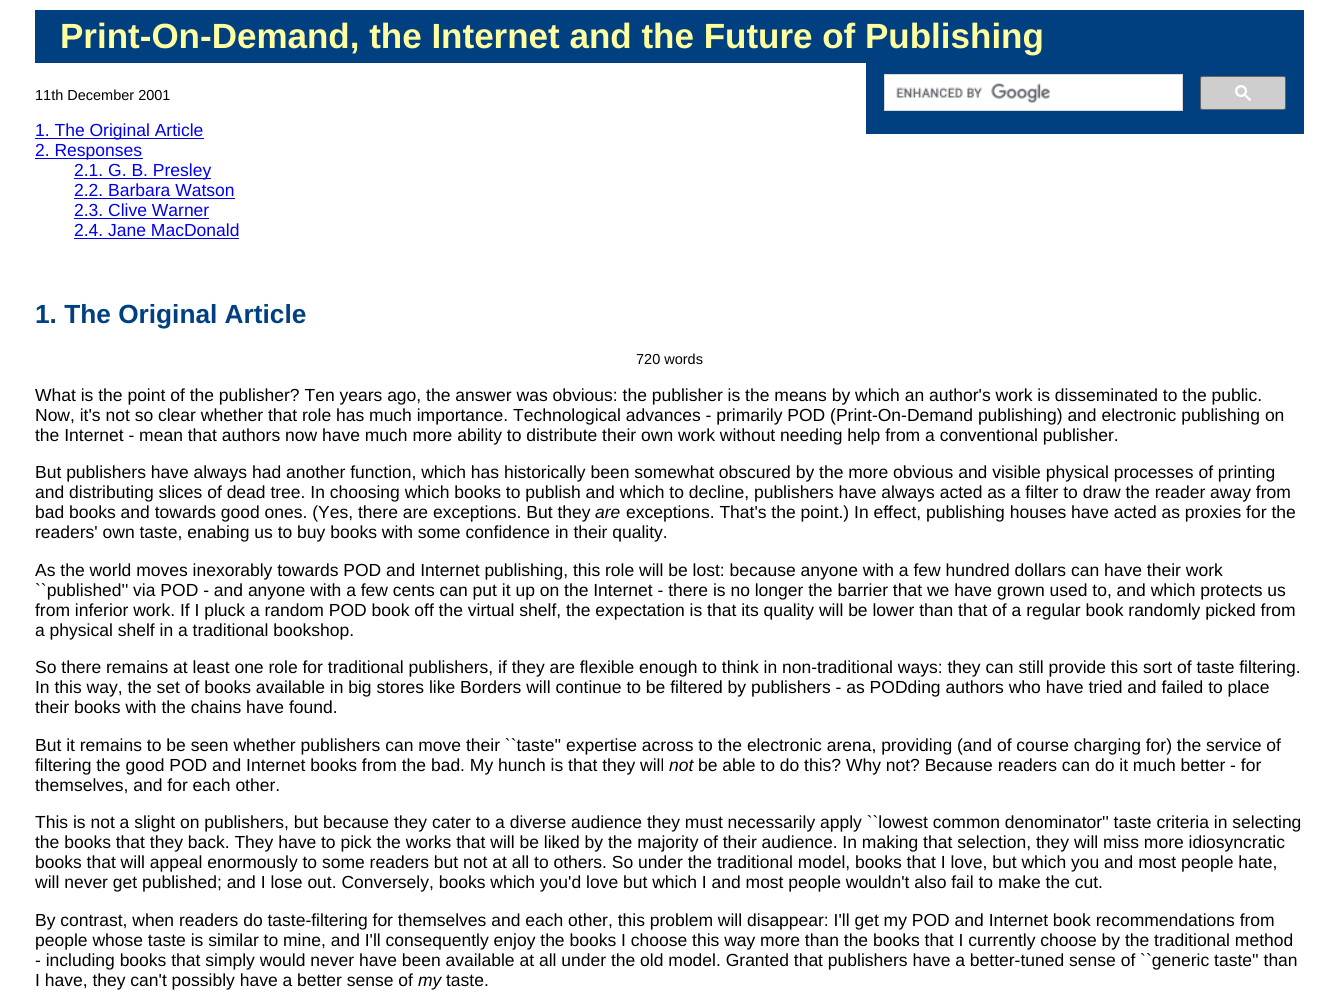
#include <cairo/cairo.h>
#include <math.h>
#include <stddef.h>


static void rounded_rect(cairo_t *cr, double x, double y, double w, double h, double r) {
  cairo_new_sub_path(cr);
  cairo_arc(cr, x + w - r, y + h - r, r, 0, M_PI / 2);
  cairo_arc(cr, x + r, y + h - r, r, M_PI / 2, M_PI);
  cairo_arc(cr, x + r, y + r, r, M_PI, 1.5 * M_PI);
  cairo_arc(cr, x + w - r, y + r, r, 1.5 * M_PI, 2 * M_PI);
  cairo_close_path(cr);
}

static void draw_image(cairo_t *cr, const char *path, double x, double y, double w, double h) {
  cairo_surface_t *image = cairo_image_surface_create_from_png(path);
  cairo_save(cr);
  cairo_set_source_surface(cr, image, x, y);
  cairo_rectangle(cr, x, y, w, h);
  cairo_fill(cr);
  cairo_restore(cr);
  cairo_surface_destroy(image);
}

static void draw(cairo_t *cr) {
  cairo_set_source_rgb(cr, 1, 1, 1);
  cairo_paint(cr);
  cairo_set_source_rgb(cr, 0, 64 / 255.0, 128 / 255.0);
  cairo_rectangle(cr, 35, 10, 1269, 53);
  cairo_fill(cr);
  cairo_rectangle(cr, 866, 63, 438, 71);
  cairo_fill(cr);
  cairo_set_source_rgb(cr, 1, 1, 1);
  cairo_rectangle(cr, 884.5, 74.5, 298, 36);
  cairo_fill_preserve(cr);
  cairo_set_source_rgb(cr, 217 / 255.0, 217 / 255.0, 217 / 255.0);
  cairo_set_line_width(cr, 1);
  cairo_stroke(cr);
  draw_image(cr, "images/1.png", 896, 83, 154, 20);
  cairo_set_source_rgb(cr, 206 / 255.0, 206 / 255.0, 206 / 255.0);
  rounded_rect(cr, 1200.5, 76.5, 85, 33, 2);
  cairo_fill_preserve(cr);
  cairo_set_source_rgb(cr, 102 / 255.0, 102 / 255.0, 102 / 255.0);
  cairo_stroke(cr);
  draw_image(cr, "images/2.png", 1235, 85, 16, 16);
  cairo_set_source_rgb(cr, 0, 0, 238 / 255.0);
  cairo_rectangle(cr, 35, 138, 169, 1);
  cairo_fill(cr);
  cairo_rectangle(cr, 35, 158, 108, 1);
  cairo_fill(cr);
  cairo_rectangle(cr, 74, 178, 137, 1);
  cairo_fill(cr);
  cairo_rectangle(cr, 74, 198, 161, 1);
  cairo_fill(cr);
  cairo_rectangle(cr, 74, 218, 135, 1);
  cairo_fill(cr);
  cairo_rectangle(cr, 74, 238, 165, 1);
  cairo_fill(cr);
  cairo_select_font_face(cr, "Liberation Sans", CAIRO_FONT_SLANT_NORMAL, CAIRO_FONT_WEIGHT_BOLD);
  cairo_set_font_size(cr, 35);
  cairo_set_source_rgb(cr, 1, 1, 160 / 255.0);
  cairo_move_to(cr, 60, 48);
  cairo_show_text(cr, "Print-On-Demand, the Internet and the Future of Publishing");
  cairo_select_font_face(cr, "Liberation Sans", CAIRO_FONT_SLANT_NORMAL, CAIRO_FONT_WEIGHT_NORMAL);
  cairo_set_font_size(cr, 14.5);
  cairo_set_source_rgb(cr, 0, 0, 0);
  cairo_move_to(cr, 35, 100);
  cairo_show_text(cr, "11th December 2001");
  cairo_set_font_size(cr, 17.5);
  cairo_set_source_rgb(cr, 0, 0, 238 / 255.0);
  cairo_move_to(cr, 35, 136);
  cairo_show_text(cr, "1. The Original Article");
  cairo_move_to(cr, 35, 156);
  cairo_show_text(cr, "2. Responses");
  cairo_move_to(cr, 74, 176);
  cairo_show_text(cr, "2.1. G. B. Presley");
  cairo_move_to(cr, 74, 196);
  cairo_show_text(cr, "2.2. Barbara Watson");
  cairo_move_to(cr, 74, 216);
  cairo_show_text(cr, "2.3. Clive Warner");
  cairo_move_to(cr, 74, 236);
  cairo_show_text(cr, "2.4. Jane MacDonald");
  cairo_select_font_face(cr, "Liberation Sans", CAIRO_FONT_SLANT_NORMAL, CAIRO_FONT_WEIGHT_BOLD);
  cairo_set_font_size(cr, 26.25);
  cairo_set_source_rgb(cr, 0, 64 / 255.0, 128 / 255.0);
  cairo_move_to(cr, 35, 323);
  cairo_show_text(cr, "1. The Original Article");
  cairo_select_font_face(cr, "Liberation Sans", CAIRO_FONT_SLANT_NORMAL, CAIRO_FONT_WEIGHT_NORMAL);
  cairo_set_font_size(cr, 14.5);
  cairo_set_source_rgb(cr, 0, 0, 0);
  cairo_move_to(cr, 636, 364);
  cairo_show_text(cr, "720 words");
  cairo_set_font_size(cr, 17.5);
  cairo_move_to(cr, 35, 401);
  cairo_show_text(cr, "What is the point of the publisher? Ten years ago, the answer was obvious: the publisher is the means by which an author's work is disseminated to the public.");
  cairo_move_to(cr, 35, 421);
  cairo_show_text(cr, "Now, it's not so clear whether that role has much importance. Technological advances - primarily POD (Print-On-Demand publishing) and electronic publishing on");
  cairo_move_to(cr, 35, 441);
  cairo_show_text(cr, "the Internet - mean that authors now have much more ability to distribute their own work without needing help from a conventional publisher.");
  cairo_move_to(cr, 35, 478);
  cairo_show_text(cr, "But publishers have always had another function, which has historically been somewhat obscured by the more obvious and visible physical processes of printing");
  cairo_move_to(cr, 35, 498);
  cairo_show_text(cr, "and distributing slices of dead tree. In choosing which books to publish and which to decline, publishers have always acted as a filter to draw the reader away from");
  cairo_move_to(cr, 35, 518);
  cairo_show_text(cr, "bad books and towards good ones. (Yes, there are exceptions. But they");
  cairo_select_font_face(cr, "Liberation Sans", CAIRO_FONT_SLANT_ITALIC, CAIRO_FONT_WEIGHT_NORMAL);
  cairo_move_to(cr, 595, 518);
  cairo_show_text(cr, "are");
  cairo_select_font_face(cr, "Liberation Sans", CAIRO_FONT_SLANT_NORMAL, CAIRO_FONT_WEIGHT_NORMAL);
  cairo_move_to(cr, 626, 518);
  cairo_show_text(cr, "exceptions. That's the point.) In effect, publishing houses have acted as proxies for the");
  cairo_move_to(cr, 35, 538);
  cairo_show_text(cr, "readers' own taste, enabing us to buy books with some confidence in their quality.");
  cairo_move_to(cr, 35, 576);
  cairo_show_text(cr, "As the world moves inexorably towards POD and Internet publishing, this role will be lost: because anyone with a few hundred dollars can have their work");
  cairo_move_to(cr, 35, 596);
  cairo_show_text(cr, "``published'' via POD - and anyone with a few cents can put it up on the Internet - there is no longer the barrier that we have grown used to, and which protects us");
  cairo_move_to(cr, 35, 616);
  cairo_show_text(cr, "from inferior work. If I pluck a random POD book off the virtual shelf, the expectation is that its quality will be lower than that of a regular book randomly picked from");
  cairo_move_to(cr, 35, 636);
  cairo_show_text(cr, "a physical shelf in a traditional bookshop.");
  cairo_move_to(cr, 35, 673);
  cairo_show_text(cr, "So there remains at least one role for traditional publishers, if they are flexible enough to think in non-traditional ways: they can still provide this sort of taste filtering.");
  cairo_move_to(cr, 35, 693);
  cairo_show_text(cr, "In this way, the set of books available in big stores like Borders will continue to be filtered by publishers - as PODding authors who have tried and failed to place");
  cairo_move_to(cr, 35, 713);
  cairo_show_text(cr, "their books with the chains have found.");
  cairo_move_to(cr, 35, 751);
  cairo_show_text(cr, "But it remains to be seen whether publishers can move their ``taste'' expertise across to the electronic arena, providing (and of course charging for) the service of");
  cairo_move_to(cr, 35, 771);
  cairo_show_text(cr, "filtering the good POD and Internet books from the bad. My hunch is that they will");
  cairo_select_font_face(cr, "Liberation Sans", CAIRO_FONT_SLANT_ITALIC, CAIRO_FONT_WEIGHT_NORMAL);
  cairo_move_to(cr, 669, 771);
  cairo_show_text(cr, "not");
  cairo_select_font_face(cr, "Liberation Sans", CAIRO_FONT_SLANT_NORMAL, CAIRO_FONT_WEIGHT_NORMAL);
  cairo_move_to(cr, 698, 771);
  cairo_show_text(cr, "be able to do this? Why not? Because readers can do it much better - for");
  cairo_move_to(cr, 35, 791);
  cairo_show_text(cr, "themselves, and for each other.");
  cairo_move_to(cr, 35, 828);
  cairo_show_text(cr, "This is not a slight on publishers, but because they cater to a diverse audience they must necessarily apply ``lowest common denominator'' taste criteria in selecting");
  cairo_move_to(cr, 35, 848);
  cairo_show_text(cr, "the books that they back. They have to pick the works that will be liked by the majority of their audience. In making that selection, they will miss more idiosyncratic");
  cairo_move_to(cr, 35, 868);
  cairo_show_text(cr, "books that will appeal enormously to some readers but not at all to others. So under the traditional model, books that I love, but which you and most people hate,");
  cairo_move_to(cr, 35, 888);
  cairo_show_text(cr, "will never get published; and I lose out. Conversely, books which you'd love but which I and most people wouldn't also fail to make the cut.");
  cairo_move_to(cr, 35, 926);
  cairo_show_text(cr, "By contrast, when readers do taste-filtering for themselves and each other, this problem will disappear: I'll get my POD and Internet book recommendations from");
  cairo_move_to(cr, 35, 946);
  cairo_show_text(cr, "people whose taste is similar to mine, and I'll consequently enjoy the books I choose this way more than the books that I currently choose by the traditional method");
  cairo_move_to(cr, 35, 966);
  cairo_show_text(cr, "- including books that simply would never have been available at all under the old model. Granted that publishers have a better-tuned sense of ``generic taste'' than");
  cairo_move_to(cr, 35, 986);
  cairo_show_text(cr, "I have, they can't possibly have a better sense of");
  cairo_select_font_face(cr, "Liberation Sans", CAIRO_FONT_SLANT_ITALIC, CAIRO_FONT_WEIGHT_NORMAL);
  cairo_move_to(cr, 418, 986);
  cairo_show_text(cr, "my");
  cairo_select_font_face(cr, "Liberation Sans", CAIRO_FONT_SLANT_NORMAL, CAIRO_FONT_WEIGHT_NORMAL);
  cairo_move_to(cr, 446, 986);
  cairo_show_text(cr, "taste.");
}

int main(void) {
  cairo_surface_t *surface = cairo_image_surface_create(CAIRO_FORMAT_RGB24, 1338, 1003);
  cairo_t *cr = cairo_create(surface);
  cairo_font_options_t *options = cairo_font_options_create();
  cairo_font_options_set_hint_metrics(options, CAIRO_HINT_METRICS_OFF);
  cairo_font_options_set_hint_style(options, CAIRO_HINT_STYLE_NONE);
  cairo_set_font_options(cr, options);
  cairo_set_miter_limit(cr, 4);
  draw(cr);
  cairo_surface_write_to_png(surface, "out.png");
  cairo_font_options_destroy(options);
  cairo_destroy(cr);
  cairo_surface_destroy(surface);
  return 0;
}
